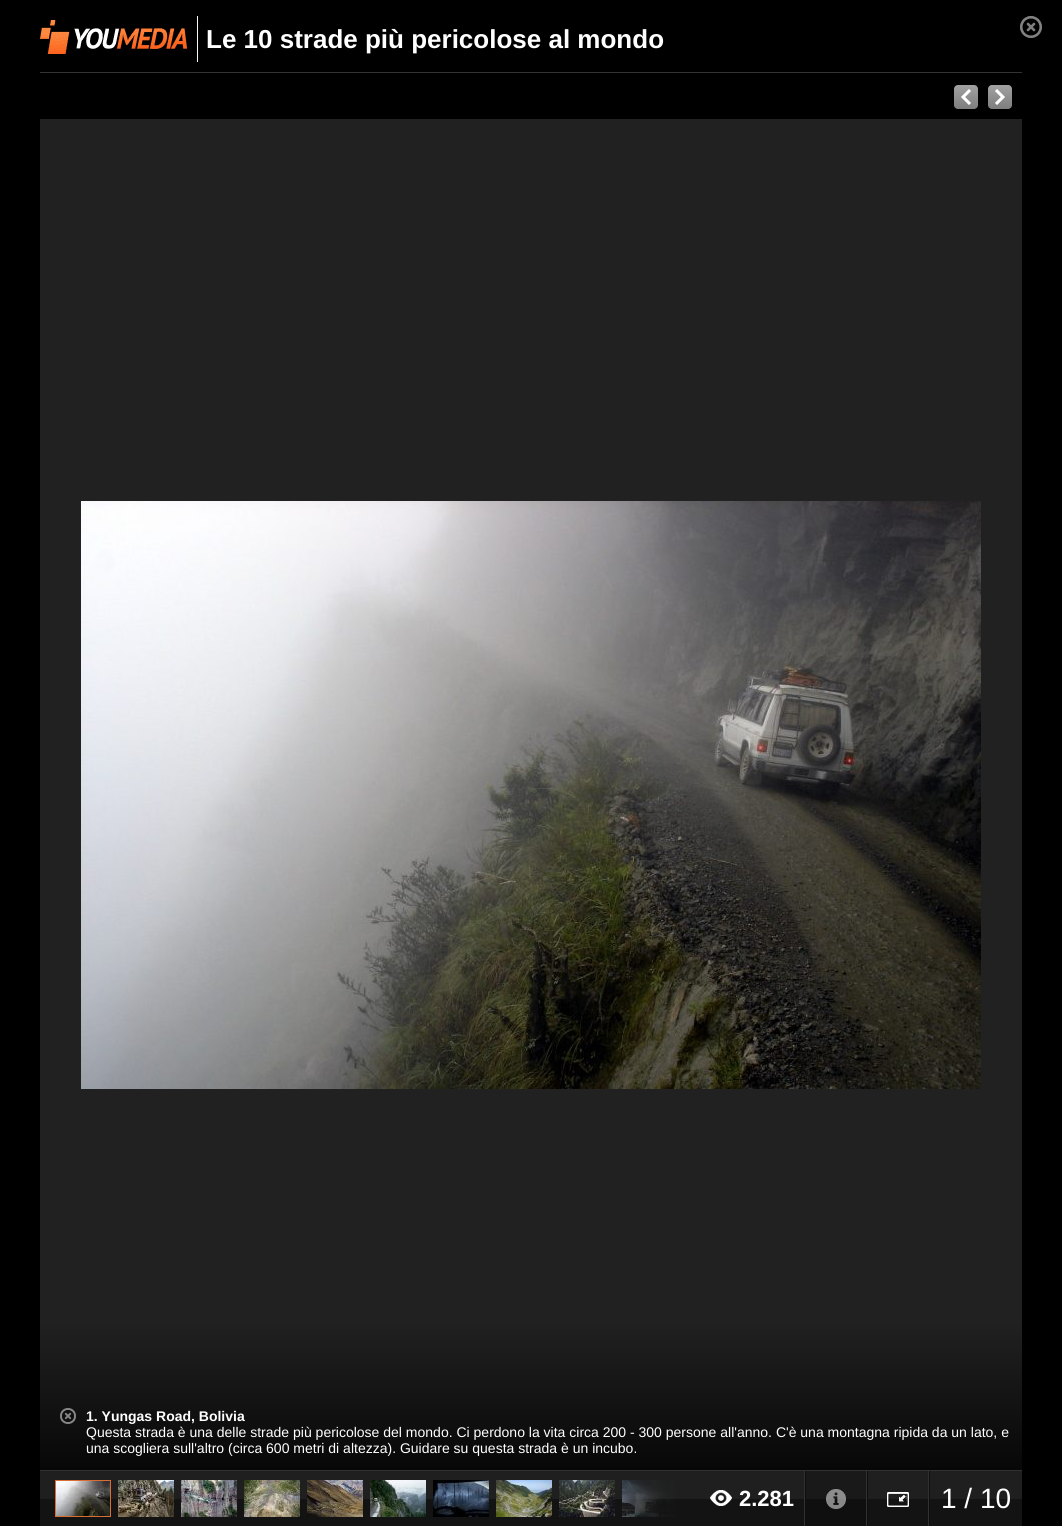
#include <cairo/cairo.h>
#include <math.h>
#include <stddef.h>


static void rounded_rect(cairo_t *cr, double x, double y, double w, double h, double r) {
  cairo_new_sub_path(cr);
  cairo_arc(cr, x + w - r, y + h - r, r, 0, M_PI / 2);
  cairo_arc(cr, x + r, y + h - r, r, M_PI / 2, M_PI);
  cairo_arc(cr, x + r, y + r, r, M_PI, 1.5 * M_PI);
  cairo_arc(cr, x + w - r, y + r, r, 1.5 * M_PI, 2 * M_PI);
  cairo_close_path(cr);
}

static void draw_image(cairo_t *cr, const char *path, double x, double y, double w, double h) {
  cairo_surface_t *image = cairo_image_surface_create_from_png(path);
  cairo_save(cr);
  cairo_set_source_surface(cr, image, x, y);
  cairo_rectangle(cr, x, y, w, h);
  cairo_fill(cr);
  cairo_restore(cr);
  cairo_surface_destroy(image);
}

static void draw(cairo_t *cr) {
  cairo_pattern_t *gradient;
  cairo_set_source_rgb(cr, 0, 0, 0);
  cairo_paint(cr);
  cairo_set_source_rgb(cr, 51 / 255.0, 51 / 255.0, 51 / 255.0);
  cairo_rectangle(cr, 40, 72, 982, 1);
  cairo_fill(cr);
  draw_image(cr, "images/1.png", 40, 20, 147, 34);
  cairo_set_source_rgb(cr, 247 / 255.0, 247 / 255.0, 245 / 255.0);
  cairo_rectangle(cr, 197, 16, 1, 46);
  cairo_fill(cr);
  draw_image(cr, "images/2.png", 1020, 16, 22, 22);
  gradient = cairo_pattern_create_linear(966, 85, 966, 109);
  cairo_pattern_add_color_stop_rgba(gradient, 0, 161 / 255.0, 161 / 255.0, 161 / 255.0, 1);
  cairo_pattern_add_color_stop_rgba(gradient, 1, 126 / 255.0, 126 / 255.0, 126 / 255.0, 1);
  cairo_set_source(cr, gradient);
  cairo_pattern_destroy(gradient);
  rounded_rect(cr, 954, 85, 24, 24, 4);
  cairo_fill(cr);
  draw_image(cr, "images/3.png", 961, 89, 10, 16);
  gradient = cairo_pattern_create_linear(1000, 85, 1000, 109);
  cairo_pattern_add_color_stop_rgba(gradient, 0, 161 / 255.0, 161 / 255.0, 161 / 255.0, 1);
  cairo_pattern_add_color_stop_rgba(gradient, 1, 126 / 255.0, 126 / 255.0, 126 / 255.0, 1);
  cairo_set_source(cr, gradient);
  cairo_pattern_destroy(gradient);
  rounded_rect(cr, 988, 85, 24, 24, 4);
  cairo_fill(cr);
  draw_image(cr, "images/4.png", 995, 89, 10, 16);
  cairo_set_source_rgb(cr, 33 / 255.0, 33 / 255.0, 33 / 255.0);
  cairo_rectangle(cr, 40, 119, 982, 1202);
  cairo_fill(cr);
  draw_image(cr, "images/5.png", 81, 501, 900, 588);
  gradient = cairo_pattern_create_linear(531, 1321, 531, 1471);
  cairo_pattern_add_color_stop_rgba(gradient, 0, 33 / 255.0, 33 / 255.0, 33 / 255.0, 1);
  cairo_pattern_add_color_stop_rgba(gradient, 1, 7 / 255.0, 7 / 255.0, 7 / 255.0, 1);
  cairo_set_source(cr, gradient);
  cairo_pattern_destroy(gradient);
  cairo_rectangle(cr, 40, 1321, 982, 149);
  cairo_fill(cr);
  draw_image(cr, "images/6.png", 60, 1408, 16, 16);
  cairo_set_source_rgb(cr, 19 / 255.0, 19 / 255.0, 19 / 255.0);
  cairo_rectangle(cr, 40, 1499, 982, 27);
  cairo_fill(cr);
  cairo_set_source_rgb(cr, 31 / 255.0, 31 / 255.0, 31 / 255.0);
  cairo_rectangle(cr, 40, 1471, 982, 28);
  cairo_fill(cr);
  cairo_set_source_rgb(cr, 49 / 255.0, 49 / 255.0, 49 / 255.0);
  cairo_rectangle(cr, 40, 1470, 982, 1);
  cairo_fill(cr);
  cairo_rectangle(cr, 55.5, 1480.5, 55, 36);
  cairo_set_source_rgb(cr, 218 / 255.0, 109 / 255.0, 49 / 255.0);
  cairo_set_line_width(cr, 1);
  cairo_stroke(cr);
  draw_image(cr, "images/7.png", 56, 1481, 54, 35);
  draw_image(cr, "images/8.png", 118, 1480, 56, 37);
  draw_image(cr, "images/9.png", 181, 1480, 56, 37);
  draw_image(cr, "images/10.png", 244, 1480, 56, 37);
  draw_image(cr, "images/11.png", 307, 1480, 56, 37);
  draw_image(cr, "images/12.png", 370, 1480, 56, 37);
  draw_image(cr, "images/13.png", 433, 1480, 56, 37);
  draw_image(cr, "images/14.png", 496, 1480, 56, 37);
  draw_image(cr, "images/15.png", 559, 1480, 56, 37);
  draw_image(cr, "images/16.png", 622, 1480, 54, 37);
  cairo_set_source_rgb(cr, 15 / 255.0, 15 / 255.0, 15 / 255.0);
  cairo_rectangle(cr, 806, 1499, 60, 27);
  cairo_fill(cr);
  cairo_set_source_rgb(cr, 25 / 255.0, 25 / 255.0, 25 / 255.0);
  cairo_rectangle(cr, 806, 1471, 60, 28);
  cairo_fill(cr);
  draw_image(cr, "images/17.png", 601, 1480, 77, 37);
  cairo_set_source_rgb(cr, 49 / 255.0, 49 / 255.0, 49 / 255.0);
  cairo_rectangle(cr, 804, 1471, 1, 55);
  cairo_fill(cr);
  draw_image(cr, "images/18.png", 710, 1490, 22, 16);
  cairo_rectangle(cr, 866, 1471, 1, 55);
  cairo_fill(cr);
  cairo_set_source_rgb(cr, 15 / 255.0, 15 / 255.0, 15 / 255.0);
  cairo_rectangle(cr, 805, 1471, 1, 55);
  cairo_fill(cr);
  draw_image(cr, "images/19.png", 826, 1489, 20, 20);
  cairo_set_source_rgb(cr, 49 / 255.0, 49 / 255.0, 49 / 255.0);
  cairo_rectangle(cr, 928, 1471, 1, 55);
  cairo_fill(cr);
  cairo_set_source_rgb(cr, 15 / 255.0, 15 / 255.0, 15 / 255.0);
  cairo_rectangle(cr, 867, 1471, 1, 55);
  cairo_fill(cr);
  draw_image(cr, "images/20.png", 887, 1492, 22, 15);
  cairo_rectangle(cr, 929, 1471, 1, 55);
  cairo_fill(cr);
  cairo_select_font_face(cr, "Liberation Sans", CAIRO_FONT_SLANT_NORMAL, CAIRO_FONT_WEIGHT_BOLD);
  cairo_set_font_size(cr, 26);
  cairo_set_source_rgb(cr, 1, 1, 1);
  cairo_move_to(cr, 206, 48);
  cairo_show_text(cr, "Le 10 strade più pericolose al mondo");
  cairo_set_font_size(cr, 14);
  cairo_move_to(cr, 86, 1421);
  cairo_show_text(cr, "1. Yungas Road, Bolivia");
  cairo_select_font_face(cr, "Liberation Sans", CAIRO_FONT_SLANT_NORMAL, CAIRO_FONT_WEIGHT_NORMAL);
  cairo_move_to(cr, 86, 1437);
  cairo_show_text(cr, "Questa strada è una delle strade più pericolose del mondo. Ci perdono la vita circa 200 - 300 persone all'anno. C'è una montagna ripida da un lato, e");
  cairo_move_to(cr, 86, 1453);
  cairo_show_text(cr, "una scogliera sull'altro (circa 600 metri di altezza). Guidare su questa strada è un incubo.");
  cairo_select_font_face(cr, "Liberation Sans", CAIRO_FONT_SLANT_NORMAL, CAIRO_FONT_WEIGHT_BOLD);
  cairo_set_font_size(cr, 22);
  cairo_move_to(cr, 739, 1506);
  cairo_show_text(cr, "2.281");
  cairo_select_font_face(cr, "Liberation Sans", CAIRO_FONT_SLANT_NORMAL, CAIRO_FONT_WEIGHT_NORMAL);
  cairo_set_font_size(cr, 28);
  cairo_move_to(cr, 941, 1508);
  cairo_show_text(cr, "1 / 10");
}

int main(void) {
  cairo_surface_t *surface = cairo_image_surface_create(CAIRO_FORMAT_RGB24, 1062, 1526);
  cairo_t *cr = cairo_create(surface);
  cairo_font_options_t *options = cairo_font_options_create();
  cairo_font_options_set_hint_metrics(options, CAIRO_HINT_METRICS_OFF);
  cairo_font_options_set_hint_style(options, CAIRO_HINT_STYLE_NONE);
  cairo_set_font_options(cr, options);
  cairo_set_miter_limit(cr, 4);
  draw(cr);
  cairo_surface_write_to_png(surface, "out.png");
  cairo_font_options_destroy(options);
  cairo_destroy(cr);
  cairo_surface_destroy(surface);
  return 0;
}
